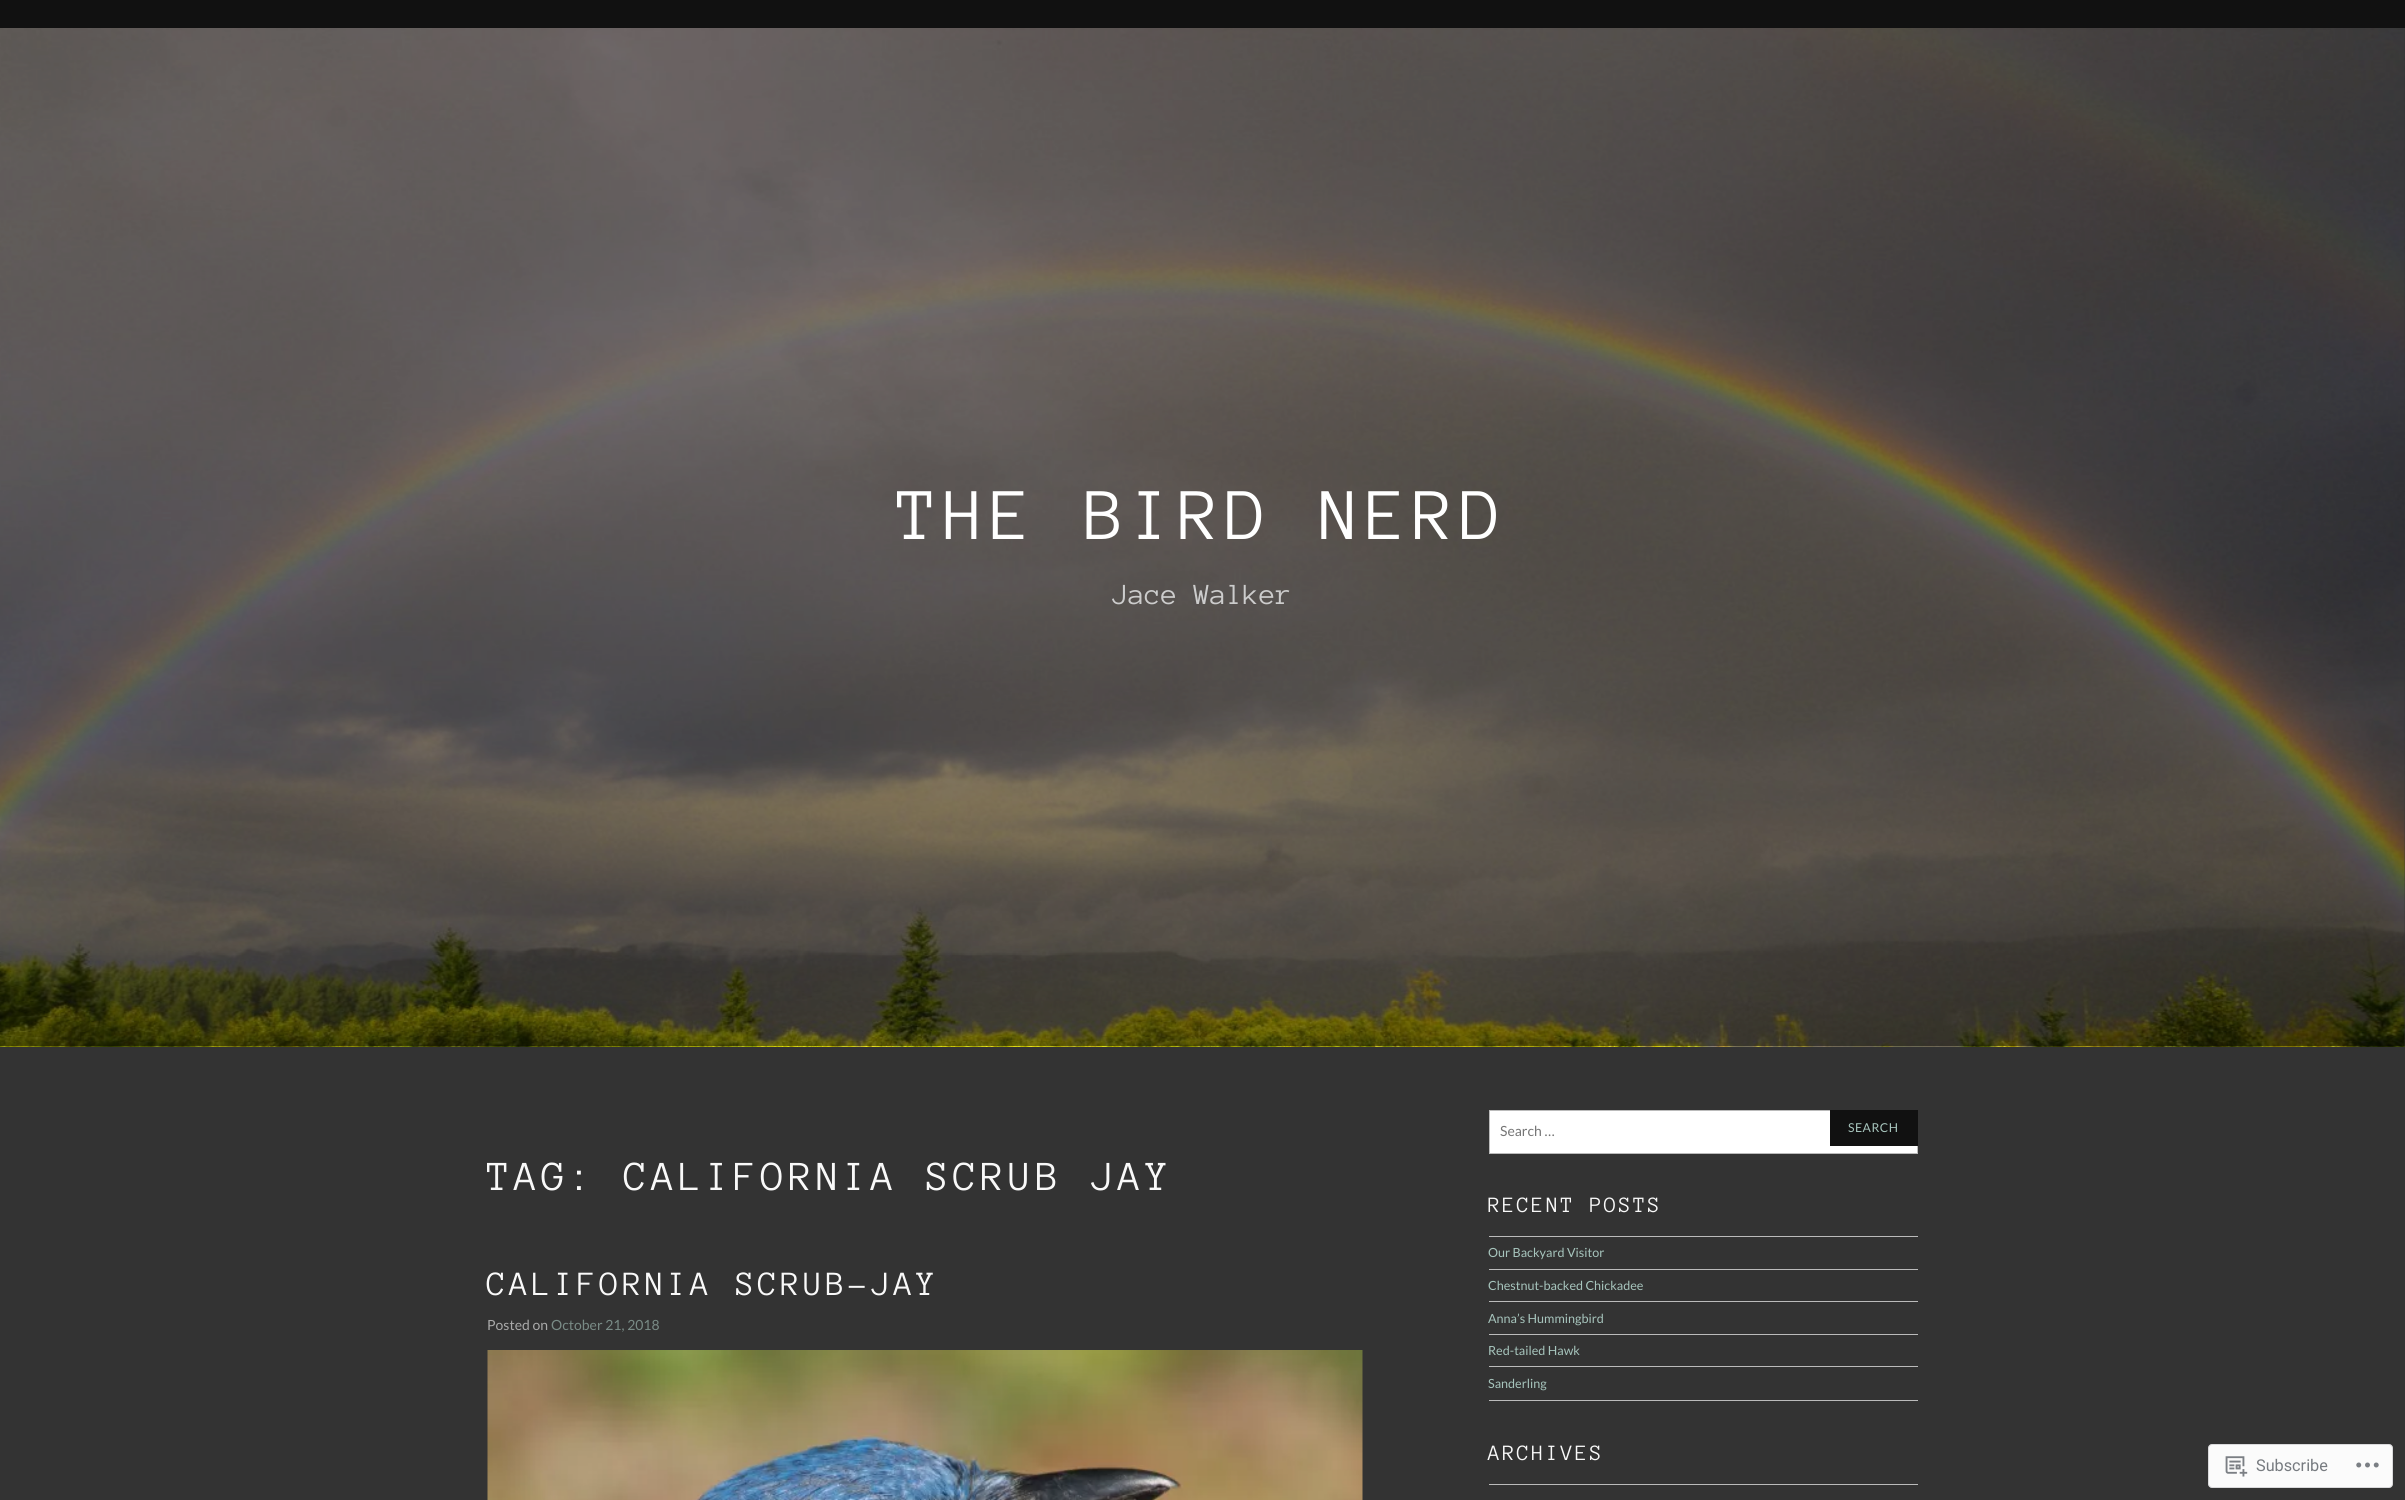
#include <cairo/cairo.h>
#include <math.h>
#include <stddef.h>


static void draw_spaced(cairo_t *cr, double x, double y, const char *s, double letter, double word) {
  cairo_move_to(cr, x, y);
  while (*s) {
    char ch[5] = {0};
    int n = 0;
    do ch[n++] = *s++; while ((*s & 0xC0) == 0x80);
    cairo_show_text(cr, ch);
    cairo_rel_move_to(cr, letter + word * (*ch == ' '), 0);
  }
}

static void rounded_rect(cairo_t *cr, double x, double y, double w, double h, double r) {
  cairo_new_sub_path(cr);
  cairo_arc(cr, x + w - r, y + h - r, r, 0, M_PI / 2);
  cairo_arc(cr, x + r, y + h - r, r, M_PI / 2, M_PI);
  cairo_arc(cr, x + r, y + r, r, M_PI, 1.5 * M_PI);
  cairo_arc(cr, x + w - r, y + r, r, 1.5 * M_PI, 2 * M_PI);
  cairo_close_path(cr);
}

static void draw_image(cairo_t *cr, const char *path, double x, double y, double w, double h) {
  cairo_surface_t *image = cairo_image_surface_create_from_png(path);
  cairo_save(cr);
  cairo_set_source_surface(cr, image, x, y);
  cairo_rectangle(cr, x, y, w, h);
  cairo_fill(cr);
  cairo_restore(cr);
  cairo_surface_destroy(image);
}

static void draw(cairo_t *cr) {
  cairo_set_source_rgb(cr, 51 / 255.0, 51 / 255.0, 51 / 255.0);
  cairo_paint(cr);
  cairo_set_source_rgb(cr, 17 / 255.0, 17 / 255.0, 17 / 255.0);
  cairo_rectangle(cr, 0, 0, 2405, 28);
  cairo_fill(cr);
  draw_image(cr, "images/1.png", 0, 28, 2405, 1019);
  draw_image(cr, "images/2.png", 487, 1350, 876, 150);
  cairo_set_source_rgb(cr, 1, 1, 1);
  cairo_rectangle(cr, 1489.5, 1110.5, 428, 43);
  cairo_fill_preserve(cr);
  cairo_set_source_rgb(cr, 187 / 255.0, 187 / 255.0, 187 / 255.0);
  cairo_set_line_width(cr, 1);
  cairo_stroke(cr);
  cairo_set_source_rgb(cr, 17 / 255.0, 17 / 255.0, 17 / 255.0);
  cairo_rectangle(cr, 1830, 1110, 88, 36);
  cairo_fill(cr);
  cairo_set_source_rgb(cr, 187 / 255.0, 187 / 255.0, 187 / 255.0);
  cairo_rectangle(cr, 1489, 1236, 429, 1);
  cairo_fill(cr);
  cairo_rectangle(cr, 1489, 1269, 429, 1);
  cairo_fill(cr);
  cairo_rectangle(cr, 1489, 1301, 429, 1);
  cairo_fill(cr);
  cairo_rectangle(cr, 1489, 1334, 429, 1);
  cairo_fill(cr);
  cairo_rectangle(cr, 1489, 1366, 429, 1);
  cairo_fill(cr);
  cairo_rectangle(cr, 1489, 1400, 429, 1);
  cairo_fill(cr);
  cairo_rectangle(cr, 1489, 1484, 429, 1);
  cairo_fill(cr);
  cairo_set_source_rgb(cr, 251 / 255.0, 251 / 255.0, 251 / 255.0);
  rounded_rect(cr, 2208.5, 1444.5, 184, 43, 3.5);
  cairo_fill_preserve(cr);
  cairo_set_source_rgb(cr, 217 / 255.0, 217 / 255.0, 219 / 255.0);
  cairo_stroke(cr);
  draw_image(cr, "images/3.png", 2225, 1456, 23, 21);
  draw_image(cr, "images/4.png", 2356, 1462, 23, 6);
  cairo_select_font_face(cr, "Anonymous Pro", CAIRO_FONT_SLANT_NORMAL, CAIRO_FONT_WEIGHT_NORMAL);
  cairo_set_font_size(cr, 75);
  cairo_set_source_rgb(cr, 1, 1, 1);
  draw_spaced(cr, 897, 539, "THE BIRD NERD", 6, 0);
  cairo_set_font_size(cr, 30);
  cairo_set_source_rgb(cr, 204 / 255.0, 204 / 255.0, 204 / 255.0);
  cairo_move_to(cr, 1112, 604);
  cairo_show_text(cr, "Jace Walker");
  cairo_set_font_size(cr, 42.5);
  cairo_set_source_rgb(cr, 249 / 255.0, 249 / 255.0, 249 / 255.0);
  draw_spaced(cr, 487, 1190, "TAG: CALIFORNIA SCRUB JAY", 4.25, 0);
  cairo_set_font_size(cr, 35);
  draw_spaced(cr, 487, 1295, "CALIFORNIA SCRUB-JAY", 3.5, 0);
  cairo_select_font_face(cr, "Lato", CAIRO_FONT_SLANT_NORMAL, CAIRO_FONT_WEIGHT_NORMAL);
  cairo_set_font_size(cr, 14);
  cairo_set_source_rgb(cr, 170 / 255.0, 170 / 255.0, 170 / 255.0);
  cairo_move_to(cr, 487, 1330);
  cairo_show_text(cr, "Posted on");
  cairo_set_source_rgb(cr, 121 / 255.0, 139 / 255.0, 134 / 255.0);
  cairo_move_to(cr, 551, 1330);
  cairo_show_text(cr, "October 21, 2018");
  cairo_set_source_rgb(cr, 117 / 255.0, 117 / 255.0, 117 / 255.0);
  cairo_move_to(cr, 1500, 1136);
  cairo_show_text(cr, "Search …");
  cairo_set_font_size(cr, 12.25);
  cairo_set_source_rgb(cr, 167 / 255.0, 197 / 255.0, 189 / 255.0);
  draw_spaced(cr, 1848, 1132, "SEARCH", 0.5, 0);
  cairo_select_font_face(cr, "Anonymous Pro", CAIRO_FONT_SLANT_NORMAL, CAIRO_FONT_WEIGHT_NORMAL);
  cairo_set_font_size(cr, 22.5);
  cairo_set_source_rgb(cr, 249 / 255.0, 249 / 255.0, 249 / 255.0);
  draw_spaced(cr, 1488, 1212, "RECENT POSTS", 2.25, 0);
  cairo_select_font_face(cr, "Lato", CAIRO_FONT_SLANT_NORMAL, CAIRO_FONT_WEIGHT_NORMAL);
  cairo_set_font_size(cr, 12.6);
  cairo_set_source_rgb(cr, 167 / 255.0, 197 / 255.0, 189 / 255.0);
  cairo_move_to(cr, 1488, 1257);
  cairo_show_text(cr, "Our Backyard Visitor");
  cairo_move_to(cr, 1488, 1290);
  cairo_show_text(cr, "Chestnut-backed Chickadee");
  cairo_move_to(cr, 1488, 1323);
  cairo_show_text(cr, "Anna’s Hummingbird");
  cairo_move_to(cr, 1488, 1355);
  cairo_show_text(cr, "Red-tailed Hawk");
  cairo_move_to(cr, 1488, 1388);
  cairo_show_text(cr, "Sanderling");
  cairo_select_font_face(cr, "Anonymous Pro", CAIRO_FONT_SLANT_NORMAL, CAIRO_FONT_WEIGHT_NORMAL);
  cairo_set_font_size(cr, 22.5);
  cairo_set_source_rgb(cr, 249 / 255.0, 249 / 255.0, 249 / 255.0);
  draw_spaced(cr, 1488, 1460, "ARCHIVES", 2.25, 0);
  cairo_select_font_face(cr, "Roboto", CAIRO_FONT_SLANT_NORMAL, CAIRO_FONT_WEIGHT_NORMAL);
  cairo_set_font_size(cr, 16.25);
  cairo_set_source_rgb(cr, 119 / 255.0, 123 / 255.0, 128 / 255.0);
  cairo_move_to(cr, 2256, 1471);
  cairo_show_text(cr, "Subscribe");
}

int main(void) {
  cairo_surface_t *surface = cairo_image_surface_create(CAIRO_FORMAT_RGB24, 2405, 1500);
  cairo_t *cr = cairo_create(surface);
  cairo_font_options_t *options = cairo_font_options_create();
  cairo_font_options_set_hint_metrics(options, CAIRO_HINT_METRICS_OFF);
  cairo_font_options_set_hint_style(options, CAIRO_HINT_STYLE_NONE);
  cairo_set_font_options(cr, options);
  cairo_set_miter_limit(cr, 4);
  draw(cr);
  cairo_surface_write_to_png(surface, "out.png");
  cairo_font_options_destroy(options);
  cairo_destroy(cr);
  cairo_surface_destroy(surface);
  return 0;
}
